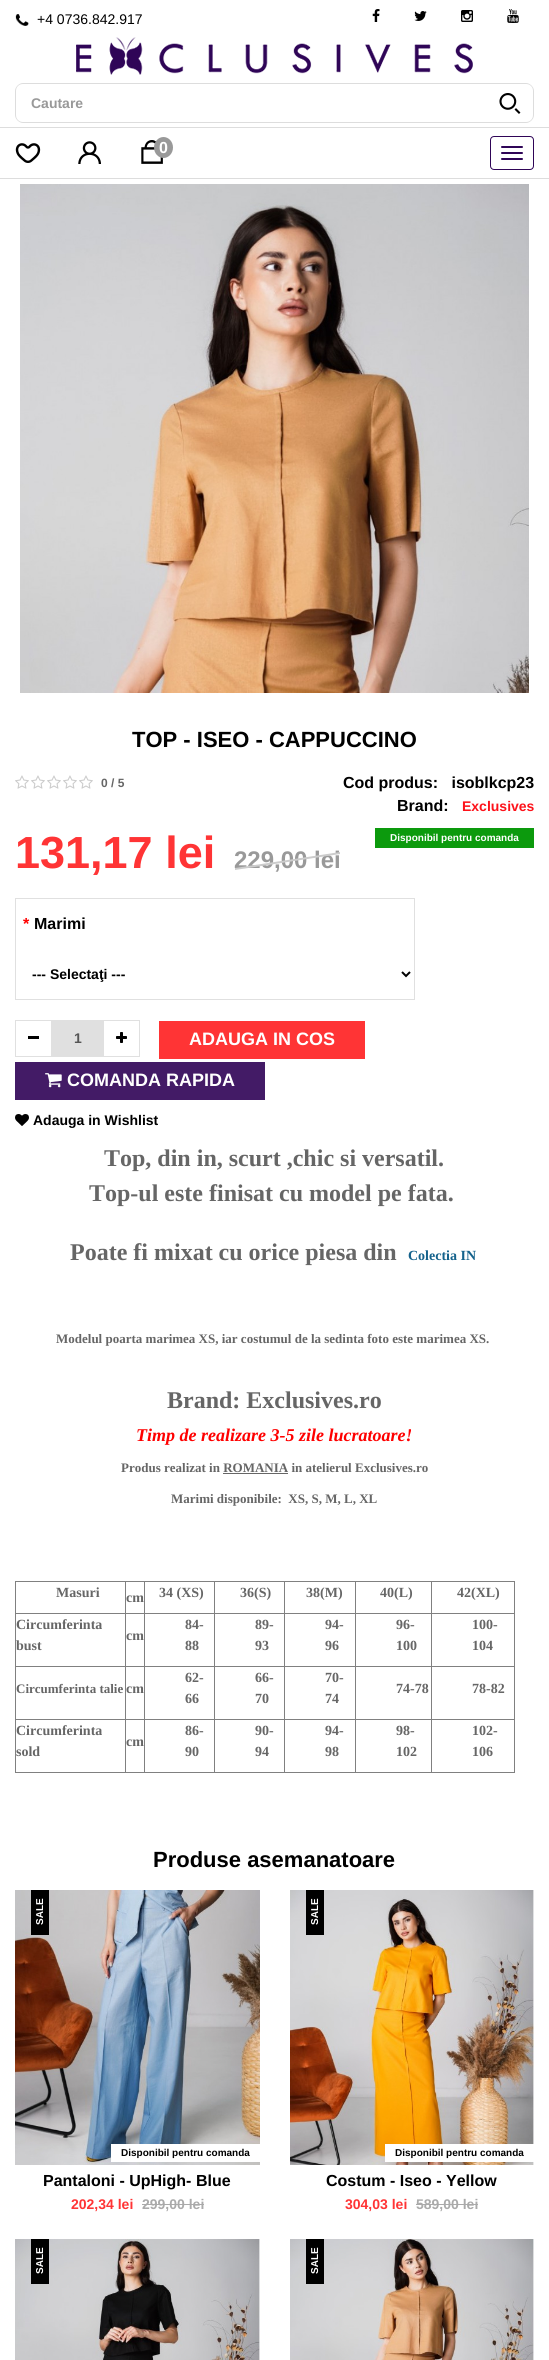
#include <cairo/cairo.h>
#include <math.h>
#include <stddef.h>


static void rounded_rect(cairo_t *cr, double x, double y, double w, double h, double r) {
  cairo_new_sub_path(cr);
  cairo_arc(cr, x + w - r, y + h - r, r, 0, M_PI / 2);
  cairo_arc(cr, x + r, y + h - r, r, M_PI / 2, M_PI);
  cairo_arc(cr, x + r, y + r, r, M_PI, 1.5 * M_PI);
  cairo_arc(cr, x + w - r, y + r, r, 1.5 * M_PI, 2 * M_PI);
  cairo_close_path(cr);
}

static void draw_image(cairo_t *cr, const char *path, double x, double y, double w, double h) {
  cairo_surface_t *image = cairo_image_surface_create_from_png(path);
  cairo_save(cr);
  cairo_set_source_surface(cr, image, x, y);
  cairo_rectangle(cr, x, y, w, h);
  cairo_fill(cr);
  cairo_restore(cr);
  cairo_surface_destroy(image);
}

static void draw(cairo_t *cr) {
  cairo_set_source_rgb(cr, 1, 1, 1);
  cairo_paint(cr);
  draw_image(cr, "images/1.png", 15, 14, 14, 12);
  draw_image(cr, "images/2.png", 372, 9, 8, 13);
  draw_image(cr, "images/3.png", 414, 11, 13, 10);
  draw_image(cr, "images/4.png", 461, 10, 12, 12);
  draw_image(cr, "images/5.png", 507, 9, 12, 14);
  draw_image(cr, "images/6.png", 76, 37, 397, 38);
  cairo_set_source_rgb(cr, 221 / 255.0, 221 / 255.0, 221 / 255.0);
  cairo_set_fill_rule(cr, CAIRO_FILL_RULE_EVEN_ODD);
  cairo_new_path(cr);
  cairo_move_to(cr, 23, 83);
  cairo_line_to(cr, 488, 83);
  cairo_line_to(cr, 488, 123);
  cairo_line_to(cr, 23, 123);
  cairo_curve_to(cr, 19, 123, 15, 119, 15, 115);
  cairo_line_to(cr, 15, 91);
  cairo_curve_to(cr, 15, 87, 19, 83, 23, 83);
  cairo_close_path(cr);
  cairo_move_to(cr, 23, 84);
  cairo_line_to(cr, 488, 84);
  cairo_line_to(cr, 488, 122);
  cairo_line_to(cr, 23, 122);
  cairo_curve_to(cr, 19, 122, 16, 119, 16, 115);
  cairo_line_to(cr, 16, 91);
  cairo_curve_to(cr, 16, 87, 19, 84, 23, 84);
  cairo_close_path(cr);
  cairo_fill(cr);
  cairo_set_source_rgb(cr, 1, 1, 1);
  cairo_new_path(cr);
  cairo_move_to(cr, 487, 83);
  cairo_line_to(cr, 526, 83);
  cairo_curve_to(cr, 530.5, 83, 534, 86.5, 534, 91);
  cairo_line_to(cr, 534, 115);
  cairo_curve_to(cr, 534, 119.5, 530.5, 123, 526, 123);
  cairo_line_to(cr, 487, 123);
  cairo_close_path(cr);
  cairo_fill(cr);
  cairo_set_source_rgb(cr, 221 / 255.0, 221 / 255.0, 221 / 255.0);
  cairo_new_path(cr);
  cairo_move_to(cr, 487, 83);
  cairo_line_to(cr, 526, 83);
  cairo_curve_to(cr, 530, 83, 534, 87, 534, 91);
  cairo_line_to(cr, 534, 115);
  cairo_curve_to(cr, 534, 119, 530, 123, 526, 123);
  cairo_line_to(cr, 487, 123);
  cairo_close_path(cr);
  cairo_move_to(cr, 487, 84);
  cairo_line_to(cr, 526, 84);
  cairo_curve_to(cr, 530, 84, 533, 87, 533, 91);
  cairo_line_to(cr, 533, 115);
  cairo_curve_to(cr, 533, 119, 530, 122, 526, 122);
  cairo_line_to(cr, 487, 122);
  cairo_close_path(cr);
  cairo_fill(cr);
  draw_image(cr, "images/7.png", 499, 93, 22, 21);
  draw_image(cr, "images/8.png", 15, 143, 26, 20);
  draw_image(cr, "images/9.png", 78, 141, 23, 23);
  draw_image(cr, "images/10.png", 141, 140, 22, 24);
  cairo_set_source_rgb(cr, 153 / 255.0, 153 / 255.0, 153 / 255.0);
  cairo_new_path(cr);
  cairo_move_to(cr, 163.5, 137);
  cairo_curve_to(cr, 168.5, 137, 173, 141.5, 173, 147.5);
  cairo_curve_to(cr, 173, 153.5, 168.5, 158, 163.5, 158);
  cairo_curve_to(cr, 158.5, 158, 154, 153.5, 154, 147.5);
  cairo_curve_to(cr, 154, 141.5, 158.5, 137, 163.5, 137);
  cairo_close_path(cr);
  cairo_fill(cr);
  cairo_set_source_rgb(cr, 221 / 255.0, 221 / 255.0, 221 / 255.0);
  cairo_rectangle(cr, 0, 127, 549, 1);
  cairo_fill(cr);
  cairo_rectangle(cr, 0, 178, 549, 1);
  cairo_fill(cr);
  rounded_rect(cr, 490.5, 136.5, 43, 33, 3.5);
  cairo_set_source_rgb(cr, 47 / 255.0, 5 / 255.0, 87 / 255.0);
  cairo_set_line_width(cr, 1);
  cairo_stroke(cr);
  rounded_rect(cr, 501, 146, 22, 2, 1);
  cairo_fill(cr);
  rounded_rect(cr, 501, 152, 22, 2, 1);
  cairo_fill(cr);
  rounded_rect(cr, 501, 158, 22, 2, 1);
  cairo_fill(cr);
  draw_image(cr, "images/11.png", 20, 184, 509, 509);
  draw_image(cr, "images/12.png", 15, 775, 14, 14);
  draw_image(cr, "images/12.png", 31, 775, 14, 14);
  draw_image(cr, "images/12.png", 47, 775, 14, 14);
  draw_image(cr, "images/12.png", 63, 775, 14, 14);
  draw_image(cr, "images/12.png", 79, 775, 14, 14);
  cairo_set_source_rgb(cr, 12 / 255.0, 154 / 255.0, 13 / 255.0);
  cairo_rectangle(cr, 375, 828, 159, 20);
  cairo_fill(cr);
  cairo_set_source_rgb(cr, 224 / 255.0, 224 / 255.0, 224 / 255.0);
  cairo_rectangle(cr, 15, 898, 400, 1);
  cairo_fill(cr);
  cairo_rectangle(cr, 414, 898, 1, 102);
  cairo_fill(cr);
  cairo_rectangle(cr, 15, 898, 1, 102);
  cairo_fill(cr);
  cairo_rectangle(cr, 16, 999, 398, 1);
  cairo_fill(cr);
  cairo_new_path(cr);
  cairo_move_to(cr, 402, 972);
  cairo_line_to(cr, 406, 976);
  cairo_line_to(cr, 410, 972);
  cairo_set_source_rgb(cr, 0, 0, 0);
  cairo_set_line_width(cr, 2);
  cairo_stroke(cr);
  cairo_rectangle(cr, 15.5, 1020.5, 36, 36);
  cairo_set_source_rgb(cr, 224 / 255.0, 224 / 255.0, 224 / 255.0);
  cairo_set_line_width(cr, 1);
  cairo_stroke(cr);
  cairo_set_source_rgb(cr, 0, 0, 0);
  cairo_rectangle(cr, 28, 1036, 11, 3);
  cairo_fill(cr);
  cairo_set_source_rgb(cr, 224 / 255.0, 224 / 255.0, 224 / 255.0);
  cairo_rectangle(cr, 52, 1020, 51, 37);
  cairo_fill(cr);
  cairo_rectangle(cr, 103.5, 1020.5, 36, 36);
  cairo_stroke(cr);
  draw_image(cr, "images/13.png", 116, 1032, 11, 11);
  cairo_set_source_rgb(cr, 1, 52 / 255.0, 53 / 255.0);
  cairo_rectangle(cr, 159, 1021, 206, 38);
  cairo_fill(cr);
  cairo_set_source_rgb(cr, 67 / 255.0, 27 / 255.0, 102 / 255.0);
  cairo_rectangle(cr, 15, 1062, 250, 38);
  cairo_fill(cr);
  draw_image(cr, "images/14.png", 45, 1073, 17, 15);
  draw_image(cr, "images/15.png", 15, 1114, 14, 12);
  cairo_set_source_rgb(cr, 102 / 255.0, 102 / 255.0, 102 / 255.0);
  cairo_rectangle(cr, 223, 1473, 65, 1);
  cairo_fill(cr);
  cairo_set_source_rgb(cr, 128 / 255.0, 128 / 255.0, 128 / 255.0);
  cairo_rectangle(cr, 15, 1581, 500, 1);
  cairo_fill(cr);
  cairo_rectangle(cr, 514, 1581, 1, 192);
  cairo_fill(cr);
  cairo_rectangle(cr, 15, 1772, 500, 1);
  cairo_fill(cr);
  cairo_rectangle(cr, 15, 1581, 1, 192);
  cairo_fill(cr);
  cairo_rectangle(cr, 431, 1613, 84, 1);
  cairo_fill(cr);
  cairo_rectangle(cr, 431, 1666, 84, 1);
  cairo_fill(cr);
  cairo_rectangle(cr, 431, 1719, 84, 1);
  cairo_fill(cr);
  cairo_rectangle(cr, 431, 1719, 1, 54);
  cairo_fill(cr);
  cairo_rectangle(cr, 355, 1719, 77, 1);
  cairo_fill(cr);
  cairo_rectangle(cr, 431, 1666, 1, 54);
  cairo_fill(cr);
  cairo_rectangle(cr, 355, 1666, 77, 1);
  cairo_fill(cr);
  cairo_rectangle(cr, 431, 1613, 1, 54);
  cairo_fill(cr);
  cairo_rectangle(cr, 355, 1613, 77, 1);
  cairo_fill(cr);
  cairo_rectangle(cr, 355, 1719, 1, 54);
  cairo_fill(cr);
  cairo_rectangle(cr, 284, 1719, 72, 1);
  cairo_fill(cr);
  cairo_rectangle(cr, 355, 1666, 1, 54);
  cairo_fill(cr);
  cairo_rectangle(cr, 284, 1666, 72, 1);
  cairo_fill(cr);
  cairo_rectangle(cr, 355, 1613, 1, 54);
  cairo_fill(cr);
  cairo_rectangle(cr, 284, 1613, 72, 1);
  cairo_fill(cr);
  cairo_rectangle(cr, 284, 1719, 1, 54);
  cairo_fill(cr);
  cairo_rectangle(cr, 214, 1719, 71, 1);
  cairo_fill(cr);
  cairo_rectangle(cr, 284, 1666, 1, 54);
  cairo_fill(cr);
  cairo_rectangle(cr, 214, 1666, 71, 1);
  cairo_fill(cr);
  cairo_rectangle(cr, 284, 1613, 1, 54);
  cairo_fill(cr);
  cairo_rectangle(cr, 214, 1613, 71, 1);
  cairo_fill(cr);
  cairo_rectangle(cr, 214, 1719, 1, 54);
  cairo_fill(cr);
  cairo_rectangle(cr, 144, 1719, 71, 1);
  cairo_fill(cr);
  cairo_rectangle(cr, 214, 1666, 1, 54);
  cairo_fill(cr);
  cairo_rectangle(cr, 144, 1666, 71, 1);
  cairo_fill(cr);
  cairo_rectangle(cr, 214, 1613, 1, 54);
  cairo_fill(cr);
  cairo_rectangle(cr, 144, 1613, 71, 1);
  cairo_fill(cr);
  cairo_rectangle(cr, 144, 1719, 1, 54);
  cairo_fill(cr);
  cairo_rectangle(cr, 125, 1719, 20, 1);
  cairo_fill(cr);
  cairo_rectangle(cr, 144, 1666, 1, 54);
  cairo_fill(cr);
  cairo_rectangle(cr, 125, 1666, 20, 1);
  cairo_fill(cr);
  cairo_rectangle(cr, 144, 1613, 1, 54);
  cairo_fill(cr);
  cairo_rectangle(cr, 125, 1613, 20, 1);
  cairo_fill(cr);
  cairo_rectangle(cr, 125, 1719, 1, 54);
  cairo_fill(cr);
  cairo_rectangle(cr, 15, 1719, 111, 1);
  cairo_fill(cr);
  cairo_rectangle(cr, 125, 1666, 1, 54);
  cairo_fill(cr);
  cairo_rectangle(cr, 15, 1666, 111, 1);
  cairo_fill(cr);
  cairo_rectangle(cr, 125, 1613, 1, 54);
  cairo_fill(cr);
  cairo_rectangle(cr, 15, 1613, 111, 1);
  cairo_fill(cr);
  cairo_rectangle(cr, 125, 1581, 1, 33);
  cairo_fill(cr);
  cairo_rectangle(cr, 144, 1581, 1, 33);
  cairo_fill(cr);
  cairo_rectangle(cr, 214, 1581, 1, 33);
  cairo_fill(cr);
  cairo_rectangle(cr, 284, 1581, 1, 33);
  cairo_fill(cr);
  cairo_rectangle(cr, 355, 1581, 1, 33);
  cairo_fill(cr);
  cairo_rectangle(cr, 431, 1581, 1, 33);
  cairo_fill(cr);
  draw_image(cr, "images/16.png", 15, 1890, 245, 275);
  cairo_set_source_rgb(cr, 0, 0, 0);
  cairo_rectangle(cr, 31, 1890, 18, 45);
  cairo_fill(cr);
  cairo_set_source_rgb(cr, 1, 1, 1);
  cairo_rectangle(cr, 111, 2144, 149, 18);
  cairo_fill(cr);
  cairo_set_source_rgb(cr, 170 / 255.0, 170 / 255.0, 170 / 255.0);
  cairo_rectangle(cr, 142, 2204, 62, 1);
  cairo_fill(cr);
  draw_image(cr, "images/17.png", 290, 1890, 244, 275);
  cairo_set_source_rgb(cr, 0, 0, 0);
  cairo_rectangle(cr, 306, 1890, 18, 45);
  cairo_fill(cr);
  cairo_set_source_rgb(cr, 1, 1, 1);
  cairo_rectangle(cr, 385, 2144, 149, 18);
  cairo_fill(cr);
  cairo_set_source_rgb(cr, 170 / 255.0, 170 / 255.0, 170 / 255.0);
  cairo_rectangle(cr, 416, 2204, 62, 1);
  cairo_fill(cr);
  draw_image(cr, "images/18.png", 15, 2239, 245, 121);
  cairo_set_source_rgb(cr, 0, 0, 0);
  cairo_rectangle(cr, 31, 2239, 18, 45);
  cairo_fill(cr);
  draw_image(cr, "images/19.png", 290, 2239, 244, 121);
  cairo_rectangle(cr, 306, 2239, 18, 45);
  cairo_fill(cr);
  cairo_select_font_face(cr, "Liberation Sans", CAIRO_FONT_SLANT_NORMAL, CAIRO_FONT_WEIGHT_NORMAL);
  cairo_set_font_size(cr, 14);
  cairo_move_to(cr, 37, 24);
  cairo_show_text(cr, "+4 0736.842.917");
  cairo_select_font_face(cr, "Liberation Sans", CAIRO_FONT_SLANT_NORMAL, CAIRO_FONT_WEIGHT_BOLD);
  cairo_set_source_rgb(cr, 153 / 255.0, 153 / 255.0, 153 / 255.0);
  cairo_move_to(cr, 31, 108);
  cairo_show_text(cr, "Cautare");
  cairo_set_font_size(cr, 16);
  cairo_set_source_rgb(cr, 1, 1, 1);
  cairo_move_to(cr, 159, 153);
  cairo_show_text(cr, "0");
  cairo_set_font_size(cr, 22);
  cairo_set_source_rgb(cr, 0, 0, 0);
  cairo_move_to(cr, 132, 747);
  cairo_show_text(cr, "TOP - ISEO - CAPPUCCINO");
  cairo_set_font_size(cr, 12);
  cairo_set_source_rgb(cr, 102 / 255.0, 102 / 255.0, 102 / 255.0);
  cairo_move_to(cr, 101, 787);
  cairo_show_text(cr, "0 / 5");
  cairo_set_font_size(cr, 16);
  cairo_set_source_rgb(cr, 0, 0, 0);
  cairo_move_to(cr, 343, 788);
  cairo_show_text(cr, "Cod produs:   isoblkcp23");
  cairo_move_to(cr, 397, 811);
  cairo_show_text(cr, "Brand:");
  cairo_set_font_size(cr, 14);
  cairo_set_source_rgb(cr, 253 / 255.0, 18 / 255.0, 26 / 255.0);
  cairo_move_to(cr, 462, 811);
  cairo_show_text(cr, "Exclusives");
  cairo_set_font_size(cr, 45);
  cairo_set_source_rgb(cr, 1, 52 / 255.0, 53 / 255.0);
  cairo_move_to(cr, 15, 868);
  cairo_show_text(cr, "131,17 lei");
  cairo_set_font_size(cr, 24);
  cairo_set_source_rgb(cr, 153 / 255.0, 153 / 255.0, 153 / 255.0);
  cairo_move_to(cr, 234, 868);
  cairo_show_text(cr, "229,00 lei");
  cairo_set_source_rgb(cr, 204 / 255.0, 204 / 255.0, 204 / 255.0);
  cairo_set_fill_rule(cr, CAIRO_FILL_RULE_WINDING);
  cairo_new_path(cr);
  cairo_move_to(cr, 235, 868);
  cairo_line_to(cr, 340, 852);
  cairo_line_to(cr, 340, 854);
  cairo_line_to(cr, 235, 870);
  cairo_close_path(cr);
  cairo_fill(cr);
  cairo_set_font_size(cr, 10);
  cairo_set_source_rgb(cr, 1, 1, 1);
  cairo_move_to(cr, 390, 841);
  cairo_show_text(cr, "Disponibil pentru comanda");
  cairo_set_font_size(cr, 16);
  cairo_set_source_rgb(cr, 1, 0, 0);
  cairo_move_to(cr, 23, 929);
  cairo_show_text(cr, "*");
  cairo_set_source_rgb(cr, 0, 0, 0);
  cairo_move_to(cr, 34, 929);
  cairo_show_text(cr, "Marimi");
  cairo_set_font_size(cr, 14);
  cairo_move_to(cr, 32, 979);
  cairo_show_text(cr, "--- Selectaţi ---");
  cairo_set_source_rgb(cr, 85 / 255.0, 85 / 255.0, 85 / 255.0);
  cairo_move_to(cr, 74, 1043);
  cairo_show_text(cr, "1");
  cairo_set_font_size(cr, 18);
  cairo_set_source_rgb(cr, 1, 1, 1);
  cairo_move_to(cr, 189, 1045);
  cairo_show_text(cr, "ADAUGA IN COS");
  cairo_move_to(cr, 67, 1086);
  cairo_show_text(cr, "COMANDA RAPIDA");
  cairo_set_font_size(cr, 14);
  cairo_set_source_rgb(cr, 0, 0, 0);
  cairo_move_to(cr, 33, 1125);
  cairo_show_text(cr, "Adauga in Wishlist");
  cairo_select_font_face(cr, "Liberation Serif", CAIRO_FONT_SLANT_NORMAL, CAIRO_FONT_WEIGHT_BOLD);
  cairo_set_font_size(cr, 24);
  cairo_set_source_rgb(cr, 102 / 255.0, 102 / 255.0, 102 / 255.0);
  cairo_move_to(cr, 104, 1166);
  cairo_show_text(cr, "Top, din in, scurt ,chic si versatil.");
  cairo_move_to(cr, 89, 1201);
  cairo_show_text(cr, "Top-ul este finisat cu model pe fata.");
  cairo_move_to(cr, 70, 1260);
  cairo_show_text(cr, "Poate fi mixat cu orice piesa din");
  cairo_set_font_size(cr, 14);
  cairo_set_source_rgb(cr, 20 / 255.0, 98 / 255.0, 140 / 255.0);
  cairo_move_to(cr, 408, 1260);
  cairo_show_text(cr, "Colectia IN");
  cairo_set_font_size(cr, 13);
  cairo_set_source_rgb(cr, 102 / 255.0, 102 / 255.0, 102 / 255.0);
  cairo_move_to(cr, 56, 1343);
  cairo_show_text(cr, "Modelul poarta marimea XS, iar costumul de la sedinta foto este marimea XS.");
  cairo_set_font_size(cr, 24);
  cairo_move_to(cr, 167, 1408);
  cairo_show_text(cr, "Brand: Exclusives.ro");
  cairo_select_font_face(cr, "Liberation Serif", CAIRO_FONT_SLANT_ITALIC, CAIRO_FONT_WEIGHT_BOLD);
  cairo_set_font_size(cr, 18);
  cairo_set_source_rgb(cr, 1, 0, 0);
  cairo_move_to(cr, 136, 1441);
  cairo_show_text(cr, "Timp de realizare 3-5 zile lucratoare!");
  cairo_select_font_face(cr, "Liberation Serif", CAIRO_FONT_SLANT_NORMAL, CAIRO_FONT_WEIGHT_BOLD);
  cairo_set_font_size(cr, 13);
  cairo_set_source_rgb(cr, 102 / 255.0, 102 / 255.0, 102 / 255.0);
  cairo_move_to(cr, 121, 1472);
  cairo_show_text(cr, "Produs realizat in ROMANIA in atelierul Exclusives.ro");
  cairo_move_to(cr, 171, 1503);
  cairo_show_text(cr, "Marimi disponibile:  XS, S, M, L, XL");
  cairo_set_font_size(cr, 14);
  cairo_move_to(cr, 56, 1597);
  cairo_show_text(cr, "Masuri");
  cairo_move_to(cr, 126, 1602);
  cairo_show_text(cr, "cm");
  cairo_move_to(cr, 159, 1597);
  cairo_show_text(cr, "34 (XS)");
  cairo_move_to(cr, 240, 1597);
  cairo_show_text(cr, "36(S)");
  cairo_move_to(cr, 306, 1597);
  cairo_show_text(cr, "38(M)");
  cairo_move_to(cr, 380, 1597);
  cairo_show_text(cr, "40(L)");
  cairo_move_to(cr, 457, 1597);
  cairo_show_text(cr, "42(XL)");
  cairo_move_to(cr, 16, 1629);
  cairo_show_text(cr, "Circumferinta");
  cairo_move_to(cr, 16, 1650);
  cairo_show_text(cr, "bust");
  cairo_move_to(cr, 126, 1640);
  cairo_show_text(cr, "cm");
  cairo_move_to(cr, 185, 1629);
  cairo_show_text(cr, "84-");
  cairo_move_to(cr, 185, 1650);
  cairo_show_text(cr, "88");
  cairo_move_to(cr, 255, 1629);
  cairo_show_text(cr, "89-");
  cairo_move_to(cr, 255, 1650);
  cairo_show_text(cr, "93");
  cairo_move_to(cr, 325, 1629);
  cairo_show_text(cr, "94-");
  cairo_move_to(cr, 325, 1650);
  cairo_show_text(cr, "96");
  cairo_move_to(cr, 396, 1629);
  cairo_show_text(cr, "96-");
  cairo_move_to(cr, 396, 1650);
  cairo_show_text(cr, "100");
  cairo_move_to(cr, 472, 1629);
  cairo_show_text(cr, "100-");
  cairo_move_to(cr, 472, 1650);
  cairo_show_text(cr, "104");
  cairo_set_font_size(cr, 13);
  cairo_move_to(cr, 16, 1693);
  cairo_show_text(cr, "Circumferinta talie");
  cairo_set_font_size(cr, 14);
  cairo_move_to(cr, 126, 1693);
  cairo_show_text(cr, "cm");
  cairo_move_to(cr, 185, 1682);
  cairo_show_text(cr, "62-");
  cairo_move_to(cr, 185, 1703);
  cairo_show_text(cr, "66");
  cairo_move_to(cr, 255, 1682);
  cairo_show_text(cr, "66-");
  cairo_move_to(cr, 255, 1703);
  cairo_show_text(cr, "70");
  cairo_move_to(cr, 325, 1682);
  cairo_show_text(cr, "70-");
  cairo_move_to(cr, 325, 1703);
  cairo_show_text(cr, "74");
  cairo_move_to(cr, 396, 1693);
  cairo_show_text(cr, "74-78");
  cairo_move_to(cr, 472, 1693);
  cairo_show_text(cr, "78-82");
  cairo_move_to(cr, 16, 1735);
  cairo_show_text(cr, "Circumferinta");
  cairo_move_to(cr, 16, 1756);
  cairo_show_text(cr, "sold");
  cairo_move_to(cr, 126, 1746);
  cairo_show_text(cr, "cm");
  cairo_move_to(cr, 185, 1735);
  cairo_show_text(cr, "86-");
  cairo_move_to(cr, 185, 1756);
  cairo_show_text(cr, "90");
  cairo_move_to(cr, 255, 1735);
  cairo_show_text(cr, "90-");
  cairo_move_to(cr, 255, 1756);
  cairo_show_text(cr, "94");
  cairo_move_to(cr, 325, 1735);
  cairo_show_text(cr, "94-");
  cairo_move_to(cr, 325, 1756);
  cairo_show_text(cr, "98");
  cairo_move_to(cr, 396, 1735);
  cairo_show_text(cr, "98-");
  cairo_move_to(cr, 396, 1756);
  cairo_show_text(cr, "102");
  cairo_move_to(cr, 472, 1735);
  cairo_show_text(cr, "102-");
  cairo_move_to(cr, 472, 1756);
  cairo_show_text(cr, "106");
  cairo_select_font_face(cr, "Liberation Sans", CAIRO_FONT_SLANT_NORMAL, CAIRO_FONT_WEIGHT_BOLD);
  cairo_set_font_size(cr, 22);
  cairo_set_source_rgb(cr, 0, 0, 0);
  cairo_move_to(cr, 153, 1867);
  cairo_show_text(cr, "Produse asemanatoare");
  cairo_set_font_size(cr, 10);
  cairo_set_source_rgb(cr, 1, 1, 1);
  cairo_save(cr);
  cairo_translate(cr, 43, 1925);
  cairo_rotate(cr, -90 * M_PI / 180);
  cairo_move_to(cr, 0, 0);
  cairo_show_text(cr, "SALE");
  cairo_restore(cr);
  cairo_set_source_rgb(cr, 0, 0, 0);
  cairo_move_to(cr, 121, 2156);
  cairo_show_text(cr, "Disponibil pentru comanda");
  cairo_set_font_size(cr, 16);
  cairo_move_to(cr, 43, 2186);
  cairo_show_text(cr, "Pantaloni - UpHigh- Blue");
  cairo_set_font_size(cr, 14);
  cairo_set_source_rgb(cr, 1, 52 / 255.0, 53 / 255.0);
  cairo_move_to(cr, 71, 2209);
  cairo_show_text(cr, "202,34 lei");
  cairo_set_source_rgb(cr, 170 / 255.0, 170 / 255.0, 170 / 255.0);
  cairo_move_to(cr, 142, 2209);
  cairo_show_text(cr, "299,00 lei");
  cairo_set_font_size(cr, 10);
  cairo_set_source_rgb(cr, 1, 1, 1);
  cairo_save(cr);
  cairo_translate(cr, 318, 1925);
  cairo_rotate(cr, -90 * M_PI / 180);
  cairo_move_to(cr, 0, 0);
  cairo_show_text(cr, "SALE");
  cairo_restore(cr);
  cairo_set_source_rgb(cr, 0, 0, 0);
  cairo_move_to(cr, 395, 2156);
  cairo_show_text(cr, "Disponibil pentru comanda");
  cairo_set_font_size(cr, 16);
  cairo_move_to(cr, 326, 2186);
  cairo_show_text(cr, "Costum - Iseo - Yellow");
  cairo_set_font_size(cr, 14);
  cairo_set_source_rgb(cr, 1, 52 / 255.0, 53 / 255.0);
  cairo_move_to(cr, 345, 2209);
  cairo_show_text(cr, "304,03 lei");
  cairo_set_source_rgb(cr, 170 / 255.0, 170 / 255.0, 170 / 255.0);
  cairo_move_to(cr, 416, 2209);
  cairo_show_text(cr, "589,00 lei");
  cairo_set_font_size(cr, 10);
  cairo_set_source_rgb(cr, 1, 1, 1);
  cairo_save(cr);
  cairo_translate(cr, 43, 2274);
  cairo_rotate(cr, -90 * M_PI / 180);
  cairo_move_to(cr, 0, 0);
  cairo_show_text(cr, "SALE");
  cairo_restore(cr);
  cairo_save(cr);
  cairo_translate(cr, 318, 2274);
  cairo_rotate(cr, -90 * M_PI / 180);
  cairo_move_to(cr, 0, 0);
  cairo_show_text(cr, "SALE");
  cairo_restore(cr);
}

int main(void) {
  cairo_surface_t *surface = cairo_image_surface_create(CAIRO_FORMAT_RGB24, 549, 2360);
  cairo_t *cr = cairo_create(surface);
  cairo_font_options_t *options = cairo_font_options_create();
  cairo_font_options_set_hint_metrics(options, CAIRO_HINT_METRICS_OFF);
  cairo_font_options_set_hint_style(options, CAIRO_HINT_STYLE_NONE);
  cairo_set_font_options(cr, options);
  cairo_set_miter_limit(cr, 4);
  draw(cr);
  cairo_surface_write_to_png(surface, "out.png");
  cairo_font_options_destroy(options);
  cairo_destroy(cr);
  cairo_surface_destroy(surface);
  return 0;
}
